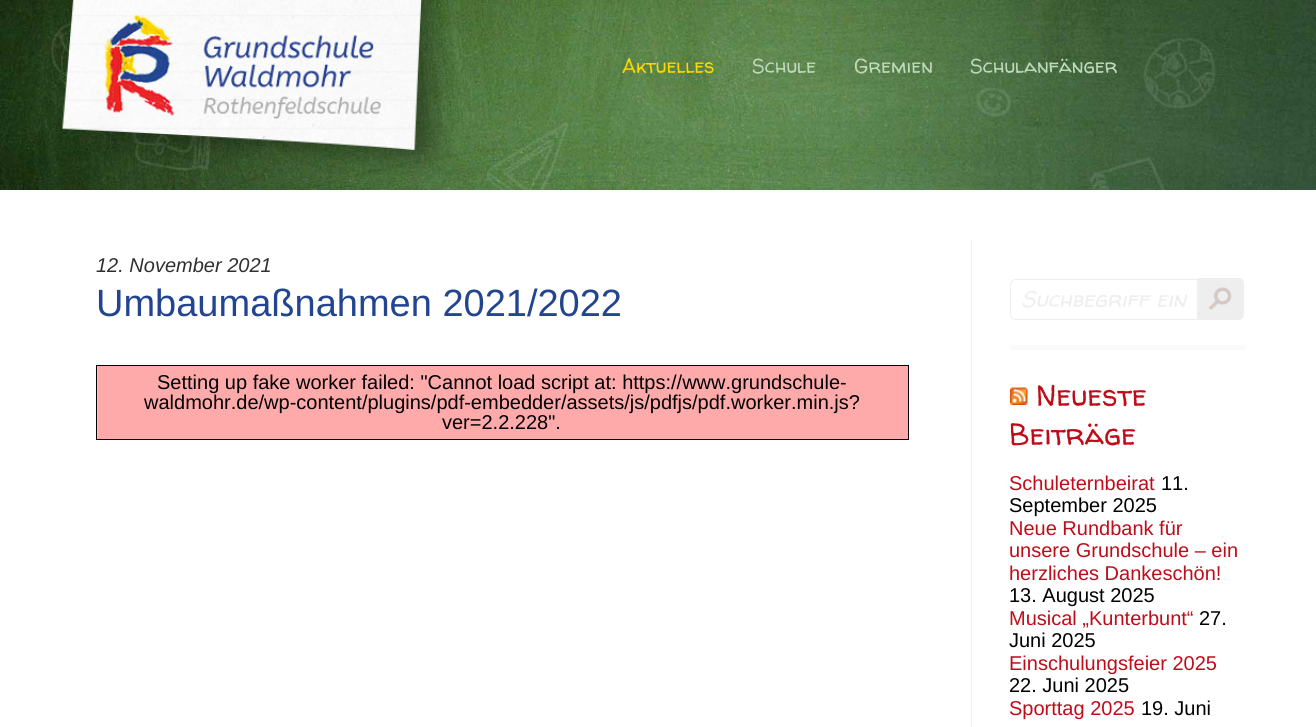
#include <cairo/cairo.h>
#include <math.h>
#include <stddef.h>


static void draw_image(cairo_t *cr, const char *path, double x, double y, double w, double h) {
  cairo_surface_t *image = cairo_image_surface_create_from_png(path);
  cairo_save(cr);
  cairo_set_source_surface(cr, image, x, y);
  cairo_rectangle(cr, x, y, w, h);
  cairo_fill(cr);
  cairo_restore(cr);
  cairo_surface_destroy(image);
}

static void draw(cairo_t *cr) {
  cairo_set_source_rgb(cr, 1, 1, 1);
  cairo_paint(cr);
  draw_image(cr, "images/1.png", 0, 0, 1316, 190);
  draw_image(cr, "images/2.png", 62, 0, 392, 175);
  cairo_set_source_rgb(cr, 211 / 255.0, 211 / 255.0, 211 / 255.0);
  cairo_rectangle(cr, 97, 366, 1, 73);
  cairo_fill(cr);
  cairo_rectangle(cr, 96.5, 365.5, 812, 74);
  cairo_set_source_rgb(cr, 0, 0, 0);
  cairo_set_line_width(cr, 1);
  cairo_stroke(cr);
  cairo_set_source_rgb(cr, 1, 170 / 255.0, 170 / 255.0);
  cairo_rectangle(cr, 98, 366, 810, 73);
  cairo_fill(cr);
  cairo_set_source_rgb(cr, 238 / 255.0, 238 / 255.0, 238 / 255.0);
  cairo_rectangle(cr, 971, 240, 1, 487);
  cairo_fill(cr);
  cairo_set_source_rgb(cr, 250 / 255.0, 250 / 255.0, 250 / 255.0);
  cairo_rectangle(cr, 1010, 345, 236, 5);
  cairo_fill(cr);
  cairo_new_path(cr);
  cairo_move_to(cr, 1016, 279.5);
  cairo_line_to(cr, 1197.5, 279.5);
  cairo_line_to(cr, 1197.5, 319.5);
  cairo_line_to(cr, 1016, 319.5);
  cairo_curve_to(cr, 1013, 319.5, 1010.5, 317, 1010.5, 314);
  cairo_line_to(cr, 1010.5, 285);
  cairo_curve_to(cr, 1010.5, 282, 1013, 279.5, 1016, 279.5);
  cairo_close_path(cr);
  cairo_set_source_rgb(cr, 238 / 255.0, 238 / 255.0, 238 / 255.0);
  cairo_stroke(cr);
  cairo_new_path(cr);
  cairo_move_to(cr, 1198, 278);
  cairo_line_to(cr, 1238, 278);
  cairo_curve_to(cr, 1241.5, 278, 1244, 280.5, 1244, 284);
  cairo_line_to(cr, 1244, 314);
  cairo_curve_to(cr, 1244, 317.5, 1241.5, 320, 1238, 320);
  cairo_line_to(cr, 1198, 320);
  cairo_close_path(cr);
  cairo_fill(cr);
  draw_image(cr, "images/3.png", 1208, 287, 24, 23);
  cairo_set_fill_rule(cr, CAIRO_FILL_RULE_EVEN_ODD);
  cairo_new_path(cr);
  cairo_move_to(cr, 1198, 278);
  cairo_line_to(cr, 1238, 278);
  cairo_curve_to(cr, 1241, 278, 1244, 280, 1244, 284);
  cairo_line_to(cr, 1244, 314);
  cairo_curve_to(cr, 1244, 317, 1241, 320, 1238, 320);
  cairo_line_to(cr, 1198, 320);
  cairo_close_path(cr);
  cairo_move_to(cr, 1198, 279);
  cairo_line_to(cr, 1238, 279);
  cairo_curve_to(cr, 1240, 279, 1242, 281, 1242, 284);
  cairo_line_to(cr, 1242, 314);
  cairo_curve_to(cr, 1242, 317, 1240, 319, 1238, 319);
  cairo_line_to(cr, 1198, 319);
  cairo_close_path(cr);
  cairo_fill(cr);
  draw_image(cr, "images/4.png", 1010, 387, 18, 18);
  cairo_select_font_face(cr, "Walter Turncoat", CAIRO_FONT_SLANT_NORMAL, CAIRO_FONT_WEIGHT_NORMAL);
  cairo_set_font_size(cr, 20);
  cairo_set_source_rgb(cr, 1, 215 / 255.0, 0);
  cairo_move_to(cr, 622, 73);
  cairo_show_text(cr, "Aktuelles");
  cairo_set_source_rgb(cr, 192 / 255.0, 217 / 255.0, 189 / 255.0);
  cairo_move_to(cr, 752, 73);
  cairo_show_text(cr, "Schule");
  cairo_move_to(cr, 854, 73);
  cairo_show_text(cr, "Gremien");
  cairo_move_to(cr, 970, 73);
  cairo_show_text(cr, "Schulanfänger");
  cairo_select_font_face(cr, "Liberation Sans", CAIRO_FONT_SLANT_ITALIC, CAIRO_FONT_WEIGHT_NORMAL);
  cairo_set_source_rgb(cr, 48 / 255.0, 48 / 255.0, 48 / 255.0);
  cairo_move_to(cr, 96, 272);
  cairo_show_text(cr, "12. November 2021");
  cairo_select_font_face(cr, "Liberation Sans", CAIRO_FONT_SLANT_NORMAL, CAIRO_FONT_WEIGHT_NORMAL);
  cairo_set_font_size(cr, 38);
  cairo_set_source_rgb(cr, 35 / 255.0, 69 / 255.0, 144 / 255.0);
  cairo_move_to(cr, 96, 316);
  cairo_show_text(cr, "Umbaumaßnahmen 2021/2022");
  cairo_set_font_size(cr, 20);
  cairo_set_source_rgb(cr, 0, 0, 0);
  cairo_move_to(cr, 157, 389);
  cairo_show_text(cr, "Setting up fake worker failed: \"Cannot load script at: https://www.grundschule-");
  cairo_move_to(cr, 144, 409);
  cairo_show_text(cr, "waldmohr.de/wp-content/plugins/pdf-embedder/assets/js/pdfjs/pdf.worker.min.js?");
  cairo_move_to(cr, 442, 429);
  cairo_show_text(cr, "ver=2.2.228\".");
  cairo_select_font_face(cr, "Walter Turncoat", CAIRO_FONT_SLANT_ITALIC, CAIRO_FONT_WEIGHT_NORMAL);
  cairo_set_font_size(cr, 22.5);
  cairo_set_source_rgb(cr, 238 / 255.0, 238 / 255.0, 238 / 255.0);
  cairo_move_to(cr, 1021, 307);
  cairo_show_text(cr, "Suchbegriff ein");
  cairo_select_font_face(cr, "Walter Turncoat", CAIRO_FONT_SLANT_NORMAL, CAIRO_FONT_WEIGHT_NORMAL);
  cairo_set_font_size(cr, 30);
  cairo_set_source_rgb(cr, 191 / 255.0, 12 / 255.0, 25 / 255.0);
  cairo_move_to(cr, 1036, 406);
  cairo_show_text(cr, "Neueste");
  cairo_move_to(cr, 1009, 445);
  cairo_show_text(cr, "Beiträge");
  cairo_select_font_face(cr, "Liberation Sans", CAIRO_FONT_SLANT_NORMAL, CAIRO_FONT_WEIGHT_NORMAL);
  cairo_set_font_size(cr, 20);
  cairo_move_to(cr, 1009, 490);
  cairo_show_text(cr, "Schuleternbeirat");
  cairo_set_source_rgb(cr, 0, 0, 0);
  cairo_move_to(cr, 1161, 490);
  cairo_show_text(cr, "11.");
  cairo_move_to(cr, 1009, 512);
  cairo_show_text(cr, "September 2025");
  cairo_set_source_rgb(cr, 191 / 255.0, 12 / 255.0, 25 / 255.0);
  cairo_move_to(cr, 1009, 535);
  cairo_show_text(cr, "Neue Rundbank für");
  cairo_move_to(cr, 1009, 557);
  cairo_show_text(cr, "unsere Grundschule – ein");
  cairo_move_to(cr, 1009, 580);
  cairo_show_text(cr, "herzliches Dankeschön!");
  cairo_set_source_rgb(cr, 0, 0, 0);
  cairo_move_to(cr, 1009, 602);
  cairo_show_text(cr, "13. August 2025");
  cairo_set_source_rgb(cr, 191 / 255.0, 12 / 255.0, 25 / 255.0);
  cairo_move_to(cr, 1009, 625);
  cairo_show_text(cr, "Musical „Kunterbunt“");
  cairo_set_source_rgb(cr, 0, 0, 0);
  cairo_move_to(cr, 1199, 625);
  cairo_show_text(cr, "27.");
  cairo_move_to(cr, 1009, 647);
  cairo_show_text(cr, "Juni 2025");
  cairo_set_source_rgb(cr, 191 / 255.0, 12 / 255.0, 25 / 255.0);
  cairo_move_to(cr, 1009, 670);
  cairo_show_text(cr, "Einschulungsfeier 2025");
  cairo_set_source_rgb(cr, 0, 0, 0);
  cairo_move_to(cr, 1009, 692);
  cairo_show_text(cr, "22. Juni 2025");
  cairo_set_source_rgb(cr, 191 / 255.0, 12 / 255.0, 25 / 255.0);
  cairo_move_to(cr, 1009, 715);
  cairo_show_text(cr, "Sporttag 2025");
  cairo_set_source_rgb(cr, 0, 0, 0);
  cairo_move_to(cr, 1141, 715);
  cairo_show_text(cr, "19. Juni");
}

int main(void) {
  cairo_surface_t *surface = cairo_image_surface_create(CAIRO_FORMAT_RGB24, 1316, 727);
  cairo_t *cr = cairo_create(surface);
  cairo_font_options_t *options = cairo_font_options_create();
  cairo_font_options_set_hint_metrics(options, CAIRO_HINT_METRICS_OFF);
  cairo_font_options_set_hint_style(options, CAIRO_HINT_STYLE_NONE);
  cairo_set_font_options(cr, options);
  cairo_set_miter_limit(cr, 4);
  draw(cr);
  cairo_surface_write_to_png(surface, "out.png");
  cairo_font_options_destroy(options);
  cairo_destroy(cr);
  cairo_surface_destroy(surface);
  return 0;
}
